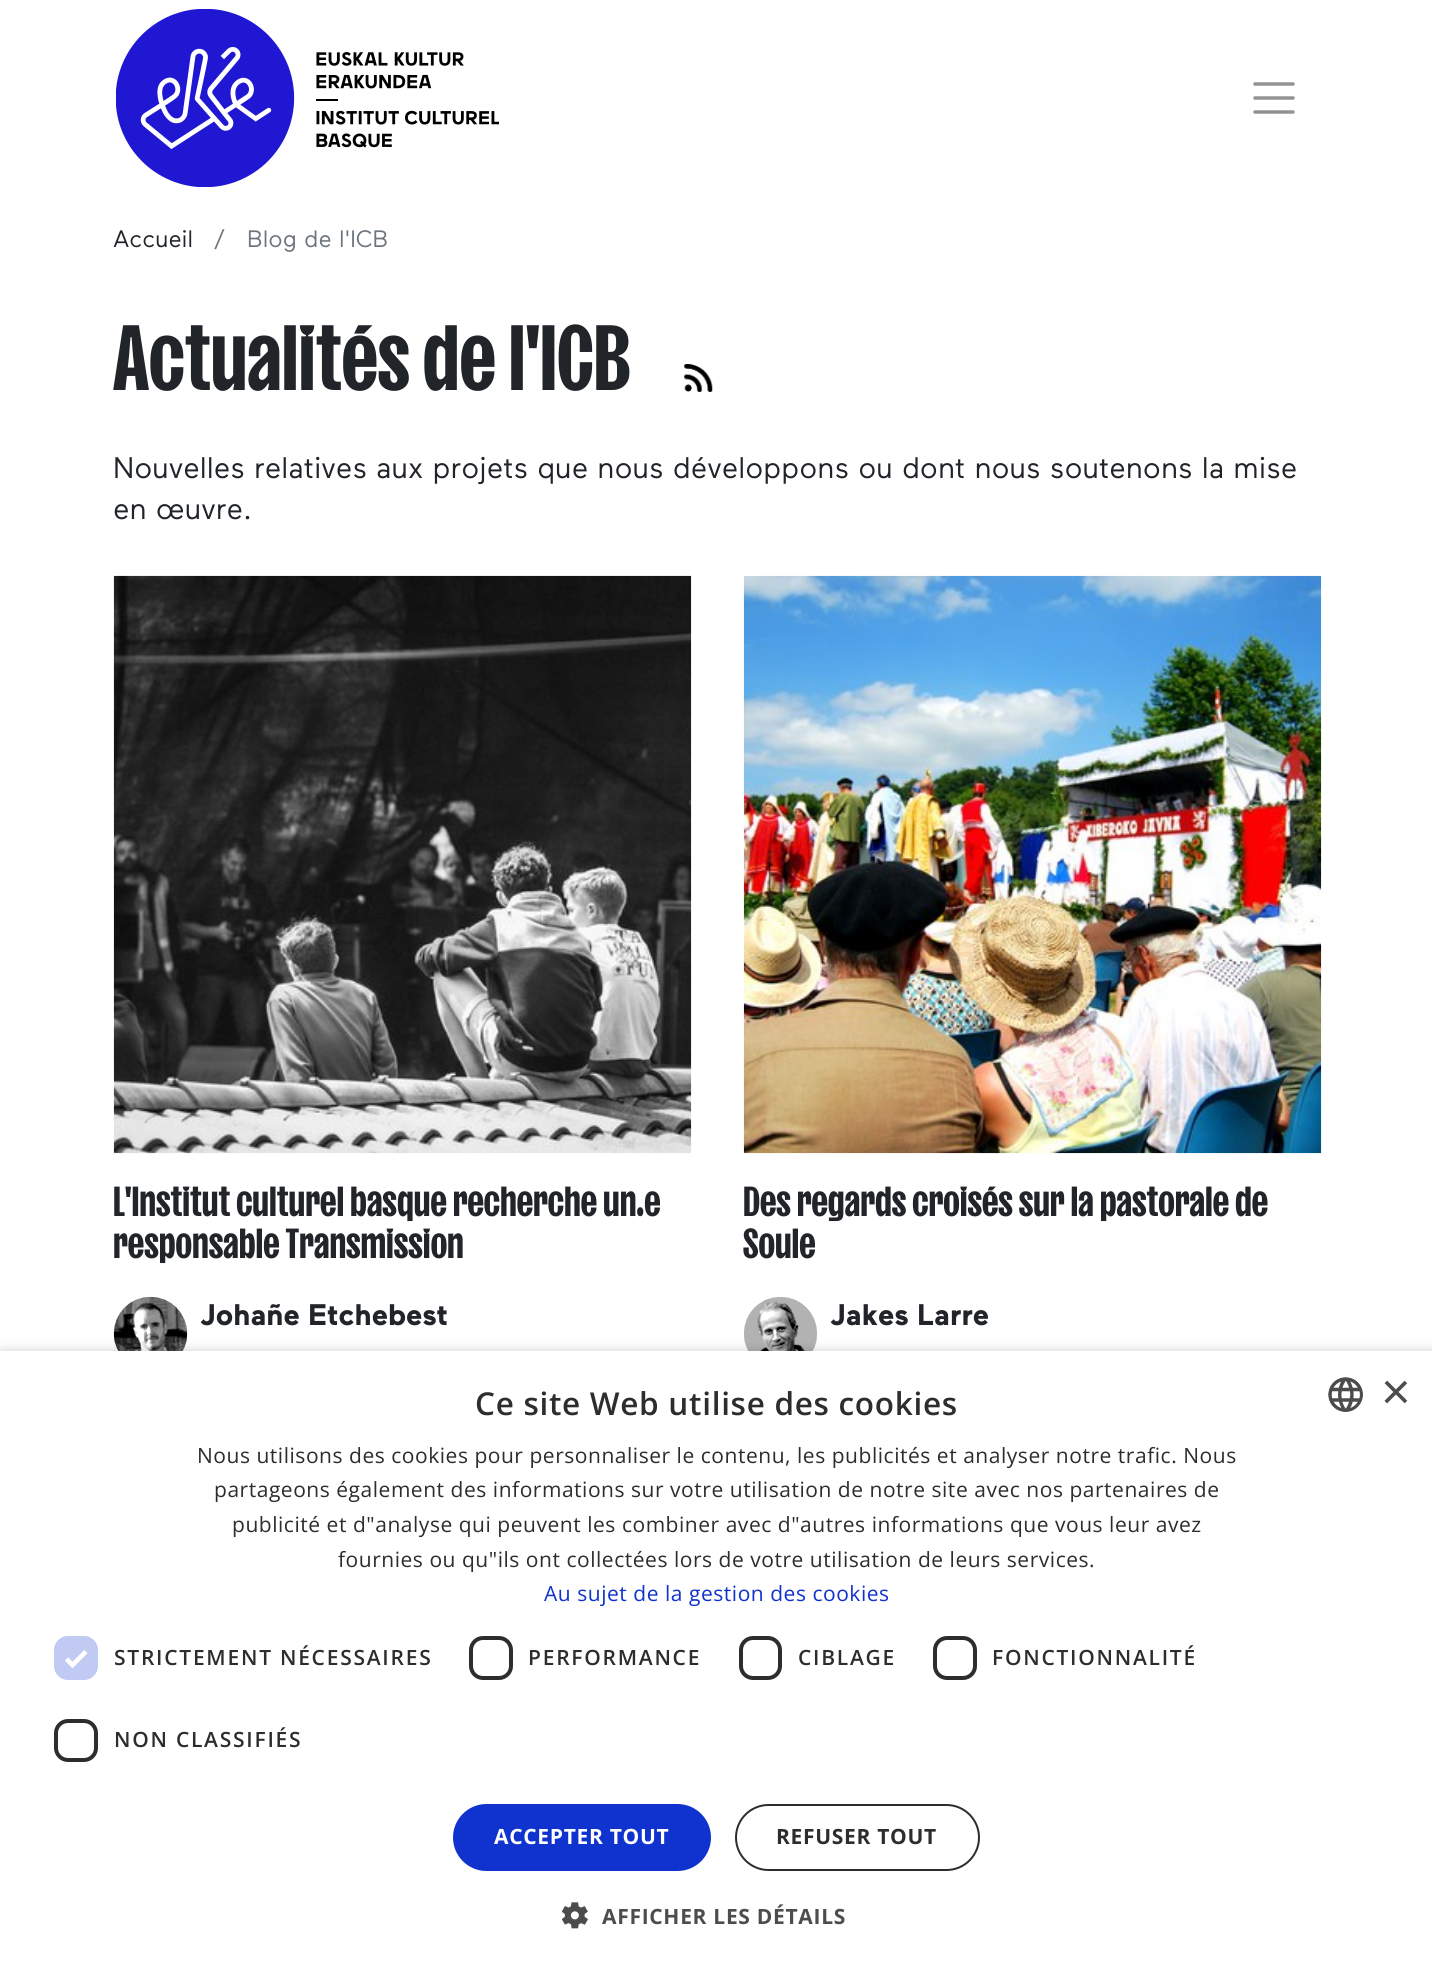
#include <cairo/cairo.h>
#include <math.h>
#include <stddef.h>


static void draw_spaced(cairo_t *cr, double x, double y, const char *s, double letter, double word) {
  cairo_move_to(cr, x, y);
  while (*s) {
    char ch[5] = {0};
    int n = 0;
    do ch[n++] = *s++; while ((*s & 0xC0) == 0x80);
    cairo_show_text(cr, ch);
    cairo_rel_move_to(cr, letter + word * (*ch == ' '), 0);
  }
}

static void rounded_rect(cairo_t *cr, double x, double y, double w, double h, double r) {
  cairo_new_sub_path(cr);
  cairo_arc(cr, x + w - r, y + h - r, r, 0, M_PI / 2);
  cairo_arc(cr, x + r, y + h - r, r, M_PI / 2, M_PI);
  cairo_arc(cr, x + r, y + r, r, M_PI, 1.5 * M_PI);
  cairo_arc(cr, x + w - r, y + r, r, 1.5 * M_PI, 2 * M_PI);
  cairo_close_path(cr);
}

static void draw_shadow(cairo_t *cr, double x, double y, double w, double h, double r, double blur, double alpha) {
  cairo_push_group_with_content(cr, CAIRO_CONTENT_ALPHA);
  cairo_set_operator(cr, CAIRO_OPERATOR_SOURCE);
  for (int i = 15; i >= -15 && fmin(w, h) + blur * i / 3 > 0; i -= 2) {
    double e = blur * i / 6;
    cairo_set_source_rgba(cr, 0, 0, 0, alpha * erfc((i - 1) / 8.5) / 2);
    rounded_rect(cr, x - e, y - e, w + 2 * e, h + 2 * e, fmax(0, fmin(r + e + blur * .6, fmin(w, h) / 2 + e)));
    cairo_fill(cr);
  }
  cairo_pattern_t *soft = cairo_pop_group(cr);
  cairo_mask(cr, soft);
  cairo_pattern_destroy(soft);
}

static void draw_image(cairo_t *cr, const char *path, double x, double y, double w, double h) {
  cairo_surface_t *image = cairo_image_surface_create_from_png(path);
  cairo_save(cr);
  cairo_set_source_surface(cr, image, x, y);
  cairo_rectangle(cr, x, y, w, h);
  cairo_fill(cr);
  cairo_restore(cr);
  cairo_surface_destroy(image);
}

static void draw(cairo_t *cr) {
  cairo_set_source_rgb(cr, 1, 1, 1);
  cairo_paint(cr);
  draw_image(cr, "images/1.png", 116, 9, 383, 178);
  cairo_new_path(cr);
  cairo_move_to(cr, 1255, 84);
  cairo_line_to(cr, 1293, 84);
  cairo_move_to(cr, 1255, 98);
  cairo_line_to(cr, 1293, 98);
  cairo_move_to(cr, 1255, 112);
  cairo_line_to(cr, 1293, 112);
  cairo_set_source_rgb(cr, 144 / 255.0, 146 / 255.0, 148 / 255.0);
  cairo_set_line_width(cr, 3.5);
  cairo_set_line_cap(cr, CAIRO_LINE_CAP_ROUND);
  cairo_stroke(cr);
  draw_image(cr, "images/2.png", 684, 364, 29, 28);
  draw_image(cr, "images/3.png", 113, 575, 579, 579);
  draw_image(cr, "images/4.png", 113, 1296, 75, 55);
  draw_image(cr, "images/5.png", 743, 575, 579, 579);
  draw_image(cr, "images/6.png", 743, 1296, 75, 55);
  cairo_set_source_rgb(cr, 0, 0, 0);
  draw_shadow(cr, 2, 1355, 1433, 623, 0, 7, 0.35);
  cairo_set_source_rgb(cr, 1, 1, 1);
  cairo_rectangle(cr, 0, 1351, 1432, 622);
  cairo_fill(cr);
  draw_image(cr, "images/7.png", 1328, 1377, 35, 35);
  cairo_set_source_rgb(cr, 193 / 255.0, 202 / 255.0, 243 / 255.0);
  rounded_rect(cr, 54, 1636, 44, 44, 14);
  cairo_fill(cr);
  cairo_new_path(cr);
  cairo_move_to(cr, 66.5, 1659);
  cairo_line_to(cr, 72.5, 1665);
  cairo_line_to(cr, 86, 1651.5);
  cairo_set_source_rgb(cr, 1, 1, 1);
  cairo_set_line_width(cr, 4.6);
  cairo_set_line_cap(cr, CAIRO_LINE_CAP_BUTT);
  cairo_stroke(cr);
  rounded_rect(cr, 471, 1638, 40, 40, 12);
  cairo_set_source_rgb(cr, 45 / 255.0, 45 / 255.0, 45 / 255.0);
  cairo_set_line_width(cr, 4);
  cairo_stroke(cr);
  rounded_rect(cr, 741, 1638, 39, 40, 12);
  cairo_stroke(cr);
  rounded_rect(cr, 935, 1638, 40, 40, 12);
  cairo_stroke(cr);
  rounded_rect(cr, 56, 1721, 40, 39, 12);
  cairo_stroke(cr);
  cairo_set_source_rgb(cr, 16 / 255.0, 50 / 255.0, 207 / 255.0);
  rounded_rect(cr, 453, 1804, 258, 67, 33.5);
  cairo_fill(cr);
  rounded_rect(cr, 736, 1805, 243, 65, 32.5);
  cairo_set_source_rgb(cr, 45 / 255.0, 45 / 255.0, 45 / 255.0);
  cairo_set_line_width(cr, 2);
  cairo_stroke(cr);
  draw_image(cr, "images/8.png", 562, 1902, 26, 27);
  cairo_select_font_face(cr, "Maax", CAIRO_FONT_SLANT_NORMAL, CAIRO_FONT_WEIGHT_NORMAL);
  cairo_set_font_size(cr, 23.75);
  cairo_set_source_rgb(cr, 33 / 255.0, 37 / 255.0, 41 / 255.0);
  cairo_move_to(cr, 113, 247);
  cairo_show_text(cr, "Accueil");
  cairo_set_source_rgb(cr, 108 / 255.0, 117 / 255.0, 125 / 255.0);
  cairo_move_to(cr, 214, 247);
  cairo_show_text(cr, "/");
  cairo_move_to(cr, 247, 247);
  cairo_show_text(cr, "Blog de l'ICB");
  cairo_select_font_face(cr, "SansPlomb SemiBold", CAIRO_FONT_SLANT_NORMAL, CAIRO_FONT_WEIGHT_NORMAL);
  cairo_set_font_size(cr, 92.5);
  cairo_set_source_rgb(cr, 33 / 255.0, 37 / 255.0, 41 / 255.0);
  cairo_move_to(cr, 113, 390);
  cairo_show_text(cr, "Actualités de l'ICB");
  cairo_select_font_face(cr, "Maax", CAIRO_FONT_SLANT_NORMAL, CAIRO_FONT_WEIGHT_NORMAL);
  cairo_set_font_size(cr, 29.75);
  cairo_move_to(cr, 113, 478);
  cairo_show_text(cr, "Nouvelles relatives aux projets que nous développons ou dont nous soutenons la mise");
  cairo_move_to(cr, 113, 519);
  cairo_show_text(cr, "en œuvre.");
  cairo_select_font_face(cr, "SansPlomb SemiBold", CAIRO_FONT_SLANT_NORMAL, CAIRO_FONT_WEIGHT_NORMAL);
  cairo_set_font_size(cr, 42);
  cairo_move_to(cr, 113, 1216);
  cairo_show_text(cr, "L'Institut culturel basque recherche un.e");
  cairo_move_to(cr, 113, 1258);
  cairo_show_text(cr, "responsable Transmission");
  cairo_select_font_face(cr, "Maax", CAIRO_FONT_SLANT_NORMAL, CAIRO_FONT_WEIGHT_BOLD);
  cairo_set_font_size(cr, 29.75);
  cairo_move_to(cr, 200, 1325);
  cairo_show_text(cr, "Johañe Etchebest");
  cairo_select_font_face(cr, "SansPlomb SemiBold", CAIRO_FONT_SLANT_NORMAL, CAIRO_FONT_WEIGHT_NORMAL);
  cairo_set_font_size(cr, 42);
  cairo_move_to(cr, 743, 1216);
  cairo_show_text(cr, "Des regards croisés sur la pastorale de");
  cairo_move_to(cr, 743, 1258);
  cairo_show_text(cr, "Soule");
  cairo_select_font_face(cr, "Maax", CAIRO_FONT_SLANT_NORMAL, CAIRO_FONT_WEIGHT_BOLD);
  cairo_set_font_size(cr, 29.75);
  cairo_move_to(cr, 830, 1325);
  cairo_show_text(cr, "Jakes Larre");
  cairo_select_font_face(cr, "Open Sans SemiBold", CAIRO_FONT_SLANT_NORMAL, CAIRO_FONT_WEIGHT_NORMAL);
  cairo_set_font_size(cr, 31.5);
  cairo_set_source_rgb(cr, 45 / 255.0, 45 / 255.0, 45 / 255.0);
  draw_spaced(cr, 475, 1415, "Ce site Web utilise des cookies", 0.7, 0);
  cairo_select_font_face(cr, "Liberation Sans", CAIRO_FONT_SLANT_NORMAL, CAIRO_FONT_WEIGHT_NORMAL);
  cairo_set_font_size(cr, 51);
  cairo_set_source_rgb(cr, 77 / 255.0, 77 / 255.0, 77 / 255.0);
  cairo_move_to(cr, 1381, 1409);
  cairo_show_text(cr, "×");
  cairo_select_font_face(cr, "Open Sans", CAIRO_FONT_SLANT_NORMAL, CAIRO_FONT_WEIGHT_NORMAL);
  cairo_set_font_size(cr, 21);
  cairo_set_source_rgb(cr, 45 / 255.0, 45 / 255.0, 45 / 255.0);
  draw_spaced(cr, 197, 1463, "Nous utilisons des cookies pour personnaliser le contenu, les publicités et analyser notre trafic. Nous", 0.53, 0);
  draw_spaced(cr, 214, 1497, "partageons également des informations sur votre utilisation de notre site avec nos partenaires de", 0.53, 0);
  draw_spaced(cr, 232, 1532, "publicité et d\"analyse qui peuvent les combiner avec d\"autres informations que vous leur avez", 0.53, 0);
  draw_spaced(cr, 338, 1567, "fournies ou qu\"ils ont collectées lors de votre utilisation de leurs services.", 0.53, 0);
  cairo_set_source_rgb(cr, 16 / 255.0, 50 / 255.0, 207 / 255.0);
  draw_spaced(cr, 544, 1601, "Au sujet de la gestion des cookies", 0.53, 0);
  cairo_select_font_face(cr, "Open Sans SemiBold", CAIRO_FONT_SLANT_NORMAL, CAIRO_FONT_WEIGHT_NORMAL);
  cairo_set_source_rgb(cr, 45 / 255.0, 45 / 255.0, 45 / 255.0);
  draw_spaced(cr, 114, 1665, "STRICTEMENT NÉCESSAIRES", 1.75, 0);
  draw_spaced(cr, 528, 1665, "PERFORMANCE", 1.75, 0);
  draw_spaced(cr, 798, 1665, "CIBLAGE", 1.75, 0);
  draw_spaced(cr, 992, 1665, "FONCTIONNALITÉ", 1.75, 0);
  draw_spaced(cr, 114, 1747, "NON CLASSIFIÉS", 1.75, 0);
  cairo_select_font_face(cr, "Open Sans", CAIRO_FONT_SLANT_NORMAL, CAIRO_FONT_WEIGHT_BOLD);
  cairo_set_source_rgb(cr, 1, 1, 1);
  draw_spaced(cr, 494, 1844, "ACCEPTER TOUT", 0.7, 0);
  cairo_set_source_rgb(cr, 45 / 255.0, 45 / 255.0, 45 / 255.0);
  draw_spaced(cr, 776, 1844, "REFUSER TOUT", 0.7, 0);
  cairo_set_source_rgb(cr, 77 / 255.0, 77 / 255.0, 77 / 255.0);
  draw_spaced(cr, 602, 1924, "AFFICHER LES DÉTAILS", 0.7, 0);
}

int main(void) {
  cairo_surface_t *surface = cairo_image_surface_create(CAIRO_FORMAT_RGB24, 1432, 1973);
  cairo_t *cr = cairo_create(surface);
  cairo_font_options_t *options = cairo_font_options_create();
  cairo_font_options_set_hint_metrics(options, CAIRO_HINT_METRICS_OFF);
  cairo_font_options_set_hint_style(options, CAIRO_HINT_STYLE_NONE);
  cairo_set_font_options(cr, options);
  cairo_set_miter_limit(cr, 4);
  draw(cr);
  cairo_surface_write_to_png(surface, "out.png");
  cairo_font_options_destroy(options);
  cairo_destroy(cr);
  cairo_surface_destroy(surface);
  return 0;
}
